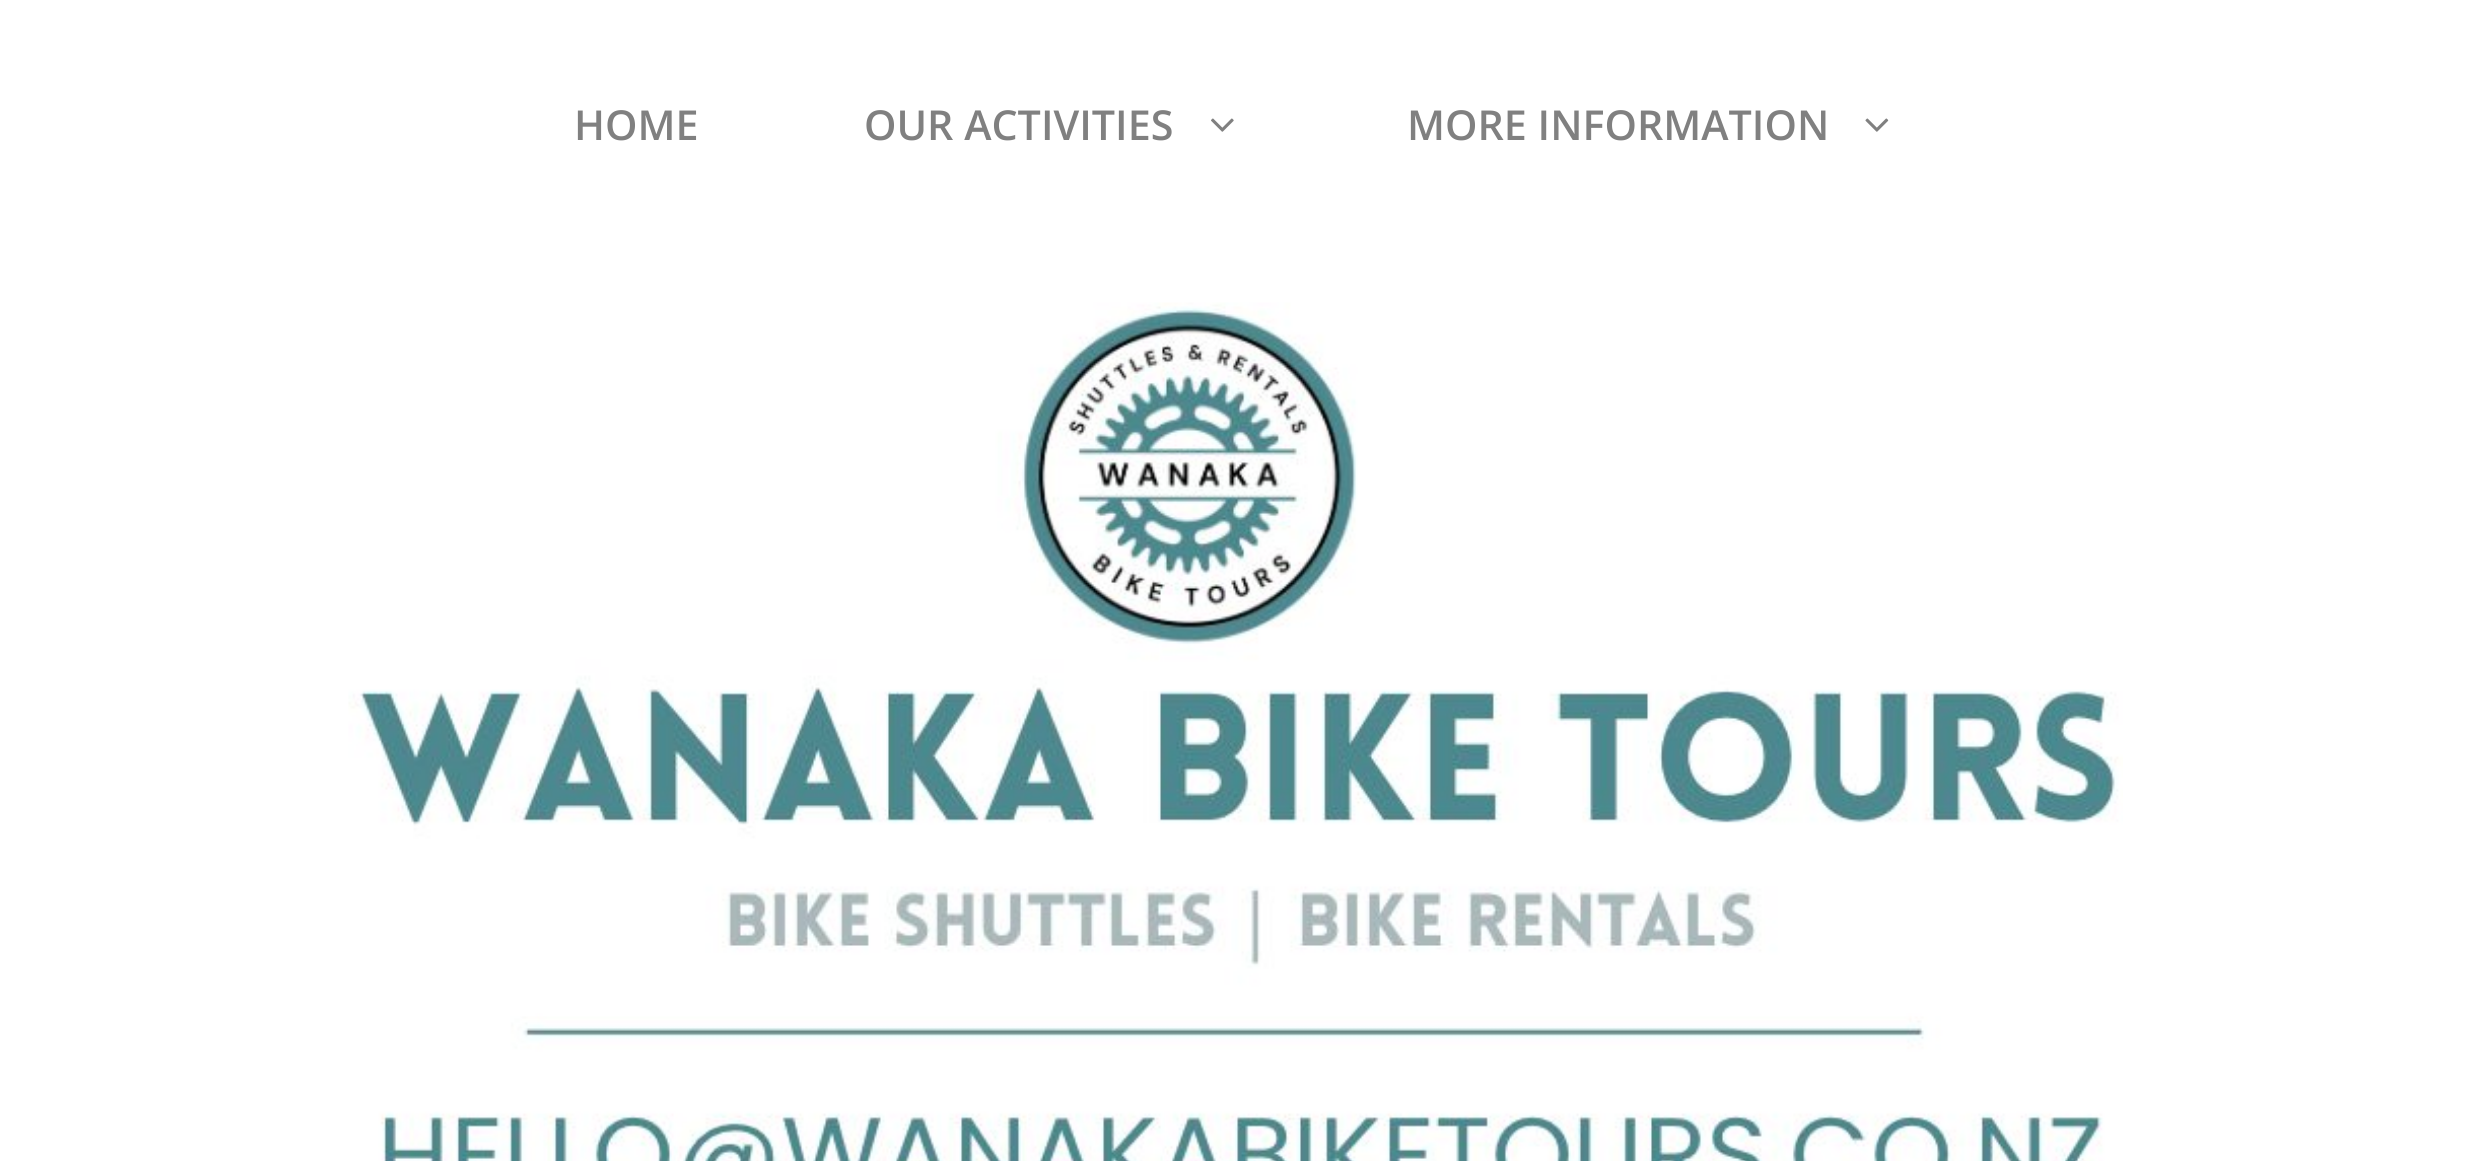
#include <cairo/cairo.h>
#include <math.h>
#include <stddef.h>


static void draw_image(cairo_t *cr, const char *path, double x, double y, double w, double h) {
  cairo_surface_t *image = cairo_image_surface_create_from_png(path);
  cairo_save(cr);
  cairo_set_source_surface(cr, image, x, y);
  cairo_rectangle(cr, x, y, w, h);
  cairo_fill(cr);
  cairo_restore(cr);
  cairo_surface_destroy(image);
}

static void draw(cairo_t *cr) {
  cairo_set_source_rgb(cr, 1, 1, 1);
  cairo_paint(cr);
  draw_image(cr, "images/1.png", 1211, 118, 23, 14);
  draw_image(cr, "images/2.png", 1865, 118, 24, 14);
  draw_image(cr, "images/3.png", 348, 302, 1775, 859);
  cairo_select_font_face(cr, "Open Sans SemiBold", CAIRO_FONT_SLANT_NORMAL, CAIRO_FONT_WEIGHT_NORMAL);
  cairo_set_font_size(cr, 41.25);
  cairo_set_source_rgb(cr, 128 / 255.0, 128 / 255.0, 128 / 255.0);
  cairo_move_to(cr, 574, 140);
  cairo_show_text(cr, "HOME");
  cairo_move_to(cr, 864, 140);
  cairo_show_text(cr, "OUR ACTIVITIES");
  cairo_move_to(cr, 1407, 140);
  cairo_show_text(cr, "MORE INFORMATION");
}

int main(void) {
  cairo_surface_t *surface = cairo_image_surface_create(CAIRO_FORMAT_RGB24, 2472, 1161);
  cairo_t *cr = cairo_create(surface);
  cairo_font_options_t *options = cairo_font_options_create();
  cairo_font_options_set_hint_metrics(options, CAIRO_HINT_METRICS_OFF);
  cairo_font_options_set_hint_style(options, CAIRO_HINT_STYLE_NONE);
  cairo_set_font_options(cr, options);
  cairo_set_miter_limit(cr, 4);
  draw(cr);
  cairo_surface_write_to_png(surface, "out.png");
  cairo_font_options_destroy(options);
  cairo_destroy(cr);
  cairo_surface_destroy(surface);
  return 0;
}
